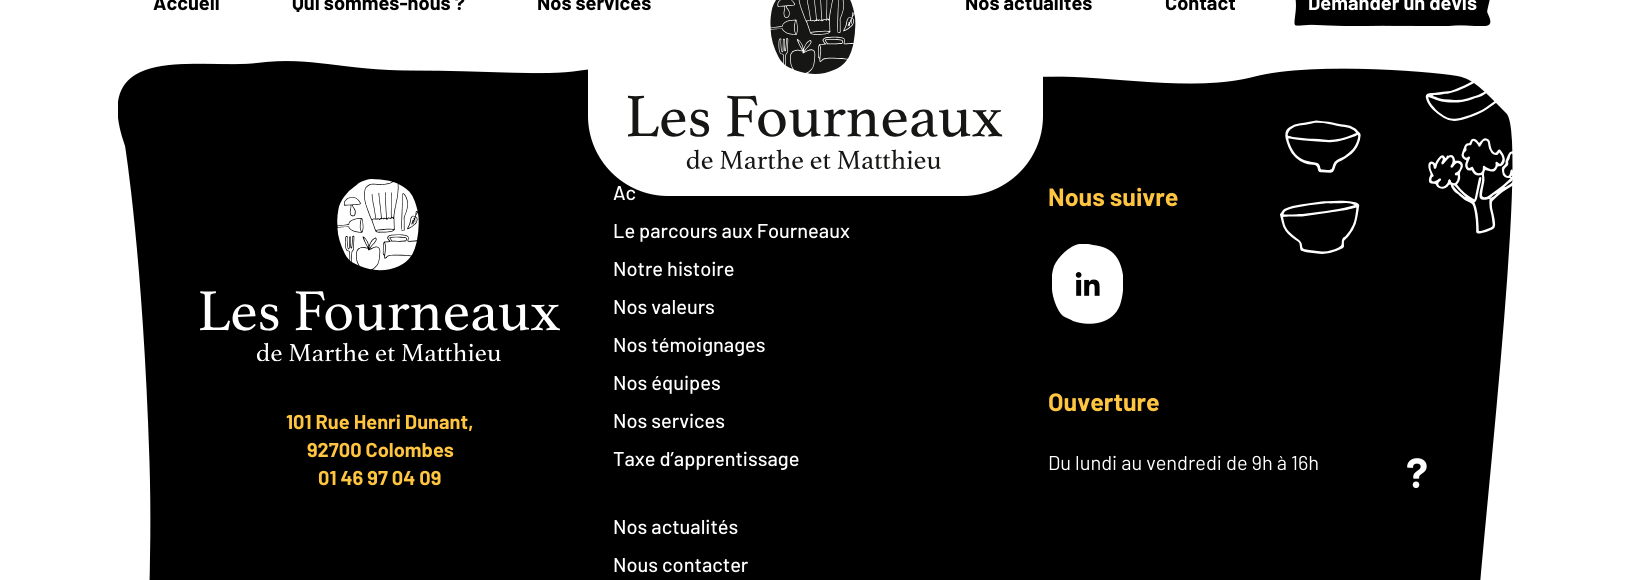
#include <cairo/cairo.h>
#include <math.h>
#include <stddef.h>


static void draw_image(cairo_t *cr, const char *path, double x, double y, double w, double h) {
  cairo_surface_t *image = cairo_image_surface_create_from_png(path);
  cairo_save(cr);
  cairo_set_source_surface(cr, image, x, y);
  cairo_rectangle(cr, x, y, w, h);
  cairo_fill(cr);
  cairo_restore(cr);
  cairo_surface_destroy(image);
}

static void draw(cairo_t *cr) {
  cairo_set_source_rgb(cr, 1, 1, 1);
  cairo_paint(cr);
  draw_image(cr, "images/3.png", 118, 61, 1395, 519);
  cairo_set_source_rgb(cr, 1, 1, 1);
  cairo_new_path(cr);
  cairo_move_to(cr, 588, -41);
  cairo_line_to(cr, 1043, -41);
  cairo_line_to(cr, 1043, 116);
  cairo_curve_to(cr, 1043, 160, 1007, 196, 963, 196);
  cairo_line_to(cr, 668, 196);
  cairo_curve_to(cr, 624, 196, 588, 160, 588, 116);
  cairo_close_path(cr);
  cairo_fill(cr);
  draw_image(cr, "images/1.png", 628, 0, 375, 169);
  draw_image(cr, "images/2.png", 1294, 0, 197, 26);
  draw_image(cr, "images/4.png", 1280, 81, 233, 173);
  draw_image(cr, "images/5.png", 200, 179, 360, 183);
  cairo_save(cr);
  cairo_rectangle(cr, 1052, 244, 71, 80);
  cairo_clip(cr);
  cairo_new_path(cr);
  cairo_move_to(cr, 1052, 285);
  cairo_curve_to(cr, 1051, 279, 1052, 272, 1054, 266);
  cairo_curve_to(cr, 1058, 257, 1069, 246, 1079, 244);
  cairo_curve_to(cr, 1084, 243, 1089, 244, 1093, 245);
  cairo_curve_to(cr, 1112, 247, 1120, 257, 1123, 275);
  cairo_curve_to(cr, 1124, 285, 1123, 296, 1120, 305);
  cairo_curve_to(cr, 1113, 324, 1090, 327, 1073, 321);
  cairo_curve_to(cr, 1070, 319, 1066, 318, 1063, 316);
  cairo_curve_to(cr, 1056, 310, 1051, 293, 1052, 285);
  cairo_fill(cr);
  cairo_restore(cr);
  draw_image(cr, "images/6.png", 1075, 272, 25, 24);
  cairo_select_font_face(cr, "Barlow", CAIRO_FONT_SLANT_NORMAL, CAIRO_FONT_WEIGHT_BOLD);
  cairo_set_font_size(cr, 20);
  cairo_set_source_rgb(cr, 0, 0, 0);
  cairo_move_to(cr, 153, 10);
  cairo_show_text(cr, "Accueil");
  cairo_move_to(cr, 292, 10);
  cairo_show_text(cr, "Qui sommes-nous ?");
  cairo_move_to(cr, 537, 10);
  cairo_show_text(cr, "Nos services");
  cairo_move_to(cr, 965, 10);
  cairo_show_text(cr, "Nos actualités");
  cairo_move_to(cr, 1165, 10);
  cairo_show_text(cr, "Contact");
  cairo_set_source_rgb(cr, 1, 1, 1);
  cairo_move_to(cr, 1308, 10);
  cairo_show_text(cr, "Demander un devis");
  cairo_set_source_rgb(cr, 1, 196 / 255.0, 64 / 255.0);
  cairo_move_to(cr, 286, 429);
  cairo_show_text(cr, "101 Rue Henri Dunant,");
  cairo_move_to(cr, 307, 457);
  cairo_show_text(cr, "92700 Colombes");
  cairo_move_to(cr, 318, 485);
  cairo_show_text(cr, "01 46 97 04 09");
  cairo_select_font_face(cr, "Barlow Medium", CAIRO_FONT_SLANT_NORMAL, CAIRO_FONT_WEIGHT_NORMAL);
  cairo_set_source_rgb(cr, 1, 1, 1);
  cairo_move_to(cr, 613, 200);
  cairo_show_text(cr, "Ac");
  cairo_move_to(cr, 613, 238);
  cairo_show_text(cr, "Le parcours aux Fourneaux");
  cairo_move_to(cr, 613, 276);
  cairo_show_text(cr, "Notre histoire");
  cairo_move_to(cr, 613, 314);
  cairo_show_text(cr, "Nos valeurs");
  cairo_move_to(cr, 613, 352);
  cairo_show_text(cr, "Nos témoignages");
  cairo_move_to(cr, 613, 390);
  cairo_show_text(cr, "Nos équipes");
  cairo_move_to(cr, 613, 428);
  cairo_show_text(cr, "Nos services");
  cairo_move_to(cr, 613, 466);
  cairo_show_text(cr, "Taxe d’apprentissage");
  cairo_move_to(cr, 613, 534);
  cairo_show_text(cr, "Nos actualités");
  cairo_move_to(cr, 613, 572);
  cairo_show_text(cr, "Nous contacter");
  cairo_select_font_face(cr, "Barlow", CAIRO_FONT_SLANT_NORMAL, CAIRO_FONT_WEIGHT_BOLD);
  cairo_set_font_size(cr, 25);
  cairo_set_source_rgb(cr, 1, 196 / 255.0, 64 / 255.0);
  cairo_move_to(cr, 1048, 206);
  cairo_show_text(cr, "Nous suivre");
  cairo_move_to(cr, 1048, 411);
  cairo_show_text(cr, "Ouverture");
  cairo_select_font_face(cr, "Barlow", CAIRO_FONT_SLANT_NORMAL, CAIRO_FONT_WEIGHT_NORMAL);
  cairo_set_font_size(cr, 20);
  cairo_set_source_rgb(cr, 1, 1, 1);
  cairo_move_to(cr, 1048, 470);
  cairo_show_text(cr, "Du lundi au vendredi de 9h à 16h");
  cairo_select_font_face(cr, "Barlow", CAIRO_FONT_SLANT_NORMAL, CAIRO_FONT_WEIGHT_BOLD);
  cairo_set_font_size(cr, 42);
  cairo_move_to(cr, 1406, 488);
  cairo_show_text(cr, "?");
}

int main(void) {
  cairo_surface_t *surface = cairo_image_surface_create(CAIRO_FORMAT_RGB24, 1630, 580);
  cairo_t *cr = cairo_create(surface);
  cairo_font_options_t *options = cairo_font_options_create();
  cairo_font_options_set_hint_metrics(options, CAIRO_HINT_METRICS_OFF);
  cairo_font_options_set_hint_style(options, CAIRO_HINT_STYLE_NONE);
  cairo_set_font_options(cr, options);
  cairo_set_miter_limit(cr, 4);
  draw(cr);
  cairo_surface_write_to_png(surface, "out.png");
  cairo_font_options_destroy(options);
  cairo_destroy(cr);
  cairo_surface_destroy(surface);
  return 0;
}
